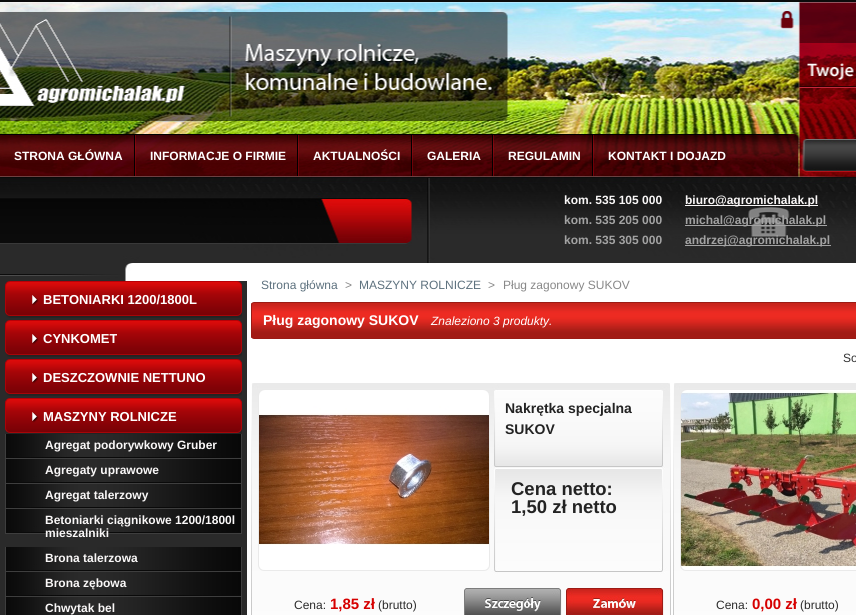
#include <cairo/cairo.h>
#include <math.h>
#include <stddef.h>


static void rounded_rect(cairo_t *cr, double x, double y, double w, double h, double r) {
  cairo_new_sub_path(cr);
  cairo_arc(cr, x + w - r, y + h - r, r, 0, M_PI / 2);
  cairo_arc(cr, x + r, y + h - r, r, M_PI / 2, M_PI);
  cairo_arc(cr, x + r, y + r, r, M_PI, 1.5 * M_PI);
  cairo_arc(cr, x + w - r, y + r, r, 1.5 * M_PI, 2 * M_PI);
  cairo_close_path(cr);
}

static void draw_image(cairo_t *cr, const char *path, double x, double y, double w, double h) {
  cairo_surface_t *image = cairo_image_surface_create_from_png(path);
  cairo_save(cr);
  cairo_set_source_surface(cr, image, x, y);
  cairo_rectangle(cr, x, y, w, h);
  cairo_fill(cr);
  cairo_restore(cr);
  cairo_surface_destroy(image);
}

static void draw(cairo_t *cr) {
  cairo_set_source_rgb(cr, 1, 1, 1);
  cairo_paint(cr);
  draw_image(cr, "images/1.png", 0, 0, 856, 318);
  draw_image(cr, "images/2.png", 134, 135, 2, 41);
  draw_image(cr, "images/2.png", 297, 135, 2, 41);
  draw_image(cr, "images/2.png", 411, 135, 2, 41);
  draw_image(cr, "images/2.png", 492, 135, 2, 41);
  draw_image(cr, "images/2.png", 592, 135, 2, 41);
  cairo_set_source_rgb(cr, 249 / 255.0, 247 / 255.0, 247 / 255.0);
  cairo_rectangle(cr, 685, 205, 133, 1);
  cairo_fill(cr);
  cairo_set_source_rgb(cr, 163 / 255.0, 163 / 255.0, 163 / 255.0);
  cairo_rectangle(cr, 685, 225, 142, 1);
  cairo_fill(cr);
  cairo_rectangle(cr, 685, 245, 146, 1);
  cairo_fill(cr);
  cairo_set_source_rgb(cr, 42 / 255.0, 42 / 255.0, 42 / 255.0);
  cairo_rectangle(cr, 0, 281, 247, 334);
  cairo_fill(cr);
  draw_image(cr, "images/3.png", 5, 281, 237, 37);
  draw_image(cr, "images/3.png", 5, 320, 237, 37);
  draw_image(cr, "images/3.png", 5, 359, 237, 37);
  draw_image(cr, "images/4.png", 5, 398, 237, 36);
  draw_image(cr, "images/5.png", 5, 434, 237, 25);
  draw_image(cr, "images/5.png", 5, 459, 237, 25);
  draw_image(cr, "images/5.png", 5, 484, 237, 25);
  draw_image(cr, "images/5.png", 5, 509, 237, 25);
  draw_image(cr, "images/5.png", 5, 547, 237, 25);
  draw_image(cr, "images/5.png", 5, 572, 237, 25);
  draw_image(cr, "images/6.png", 5, 597, 237, 18);
  draw_image(cr, "images/7.png", 251, 303, 605, 35);
  rounded_rect(cr, 251.5, 302.5, 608, 36, 2.5);
  cairo_set_source_rgb(cr, 155 / 255.0, 27 / 255.0, 21 / 255.0);
  cairo_set_line_width(cr, 1);
  cairo_stroke(cr);
  draw_image(cr, "images/8.png", 251, 383, 420, 232);
  rounded_rect(cr, 258.5, 389.5, 231, 181, 5.5);
  cairo_set_source_rgb(cr, 234 / 255.0, 234 / 255.0, 234 / 255.0);
  cairo_stroke(cr);
  draw_image(cr, "images/9.png", 259, 390, 230, 180);
  draw_image(cr, "images/10.png", 464, 588, 98, 27);
  draw_image(cr, "images/11.png", 566, 588, 98, 27);
  draw_image(cr, "images/12.png", 673, 383, 183, 232);
  rounded_rect(cr, 680.5, 389.5, 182, 181, 5.5);
  cairo_stroke(cr);
  draw_image(cr, "images/13.png", 681, 390, 175, 180);
  cairo_select_font_face(cr, "Liberation Sans", CAIRO_FONT_SLANT_NORMAL, CAIRO_FONT_WEIGHT_BOLD);
  cairo_set_font_size(cr, 12);
  cairo_set_source_rgb(cr, 1, 1, 1);
  cairo_move_to(cr, 14, 160);
  cairo_show_text(cr, "STRONA GŁÓWNA");
  cairo_move_to(cr, 150, 160);
  cairo_show_text(cr, "INFORMACJE O FIRMIE");
  cairo_move_to(cr, 313, 160);
  cairo_show_text(cr, "AKTUALNOŚCI");
  cairo_move_to(cr, 427, 160);
  cairo_show_text(cr, "GALERIA");
  cairo_move_to(cr, 508, 160);
  cairo_show_text(cr, "REGULAMIN");
  cairo_move_to(cr, 608, 160);
  cairo_show_text(cr, "KONTAKT I DOJAZD");
  cairo_set_source_rgb(cr, 249 / 255.0, 247 / 255.0, 247 / 255.0);
  cairo_move_to(cr, 564, 204);
  cairo_show_text(cr, "kom. 535 105 000");
  cairo_move_to(cr, 685, 204);
  cairo_show_text(cr, "biuro@agromichalak.pl");
  cairo_set_source_rgb(cr, 163 / 255.0, 163 / 255.0, 163 / 255.0);
  cairo_move_to(cr, 564, 224);
  cairo_show_text(cr, "kom. 535 205 000");
  cairo_move_to(cr, 685, 224);
  cairo_show_text(cr, "michal@agromichalak.pl");
  cairo_move_to(cr, 564, 244);
  cairo_show_text(cr, "kom. 535 305 000");
  cairo_move_to(cr, 685, 244);
  cairo_show_text(cr, "andrzej@agromichalak.pl");
  cairo_set_font_size(cr, 13);
  cairo_set_source_rgb(cr, 1, 1, 1);
  cairo_move_to(cr, 43, 304);
  cairo_show_text(cr, "BETONIARKI 1200/1800L");
  cairo_move_to(cr, 43, 343);
  cairo_show_text(cr, "CYNKOMET");
  cairo_move_to(cr, 43, 382);
  cairo_show_text(cr, "DESZCZOWNIE NETTUNO");
  cairo_move_to(cr, 43, 421);
  cairo_show_text(cr, "MASZYNY ROLNICZE");
  cairo_set_font_size(cr, 12);
  cairo_set_source_rgb(cr, 249 / 255.0, 247 / 255.0, 247 / 255.0);
  cairo_move_to(cr, 45, 449);
  cairo_show_text(cr, "Agregat podorywkowy Gruber");
  cairo_move_to(cr, 45, 474);
  cairo_show_text(cr, "Agregaty uprawowe");
  cairo_move_to(cr, 45, 499);
  cairo_show_text(cr, "Agregat talerzowy");
  cairo_move_to(cr, 45, 524);
  cairo_show_text(cr, "Betoniarki ciągnikowe 1200/1800l");
  cairo_move_to(cr, 45, 537);
  cairo_show_text(cr, "mieszalniki");
  cairo_move_to(cr, 45, 562);
  cairo_show_text(cr, "Brona talerzowa");
  cairo_move_to(cr, 45, 587);
  cairo_show_text(cr, "Brona zębowa");
  cairo_move_to(cr, 45, 612);
  cairo_show_text(cr, "Chwytak bel");
  cairo_select_font_face(cr, "Liberation Sans", CAIRO_FONT_SLANT_NORMAL, CAIRO_FONT_WEIGHT_NORMAL);
  cairo_set_source_rgb(cr, 93 / 255.0, 113 / 255.0, 126 / 255.0);
  cairo_move_to(cr, 261, 289);
  cairo_show_text(cr, "Strona główna");
  cairo_set_source_rgb(cr, 136 / 255.0, 136 / 255.0, 136 / 255.0);
  cairo_move_to(cr, 345, 289);
  cairo_show_text(cr, ">");
  cairo_set_source_rgb(cr, 93 / 255.0, 113 / 255.0, 126 / 255.0);
  cairo_move_to(cr, 359, 289);
  cairo_show_text(cr, "MASZYNY ROLNICZE");
  cairo_set_source_rgb(cr, 136 / 255.0, 136 / 255.0, 136 / 255.0);
  cairo_move_to(cr, 488, 289);
  cairo_show_text(cr, ">");
  cairo_move_to(cr, 503, 289);
  cairo_show_text(cr, "Pług zagonowy SUKOV");
  cairo_select_font_face(cr, "Liberation Sans", CAIRO_FONT_SLANT_NORMAL, CAIRO_FONT_WEIGHT_BOLD);
  cairo_set_font_size(cr, 14);
  cairo_set_source_rgb(cr, 1, 1, 1);
  cairo_move_to(cr, 263, 325);
  cairo_show_text(cr, "Pług zagonowy SUKOV");
  cairo_select_font_face(cr, "Liberation Sans", CAIRO_FONT_SLANT_ITALIC, CAIRO_FONT_WEIGHT_NORMAL);
  cairo_set_font_size(cr, 12);
  cairo_move_to(cr, 431, 325);
  cairo_show_text(cr, "Znaleziono 3 produkty.");
  cairo_select_font_face(cr, "Liberation Sans", CAIRO_FONT_SLANT_NORMAL, CAIRO_FONT_WEIGHT_NORMAL);
  cairo_set_source_rgb(cr, 51 / 255.0, 51 / 255.0, 51 / 255.0);
  cairo_move_to(cr, 843, 362);
  cairo_show_text(cr, "So");
  cairo_select_font_face(cr, "Liberation Sans", CAIRO_FONT_SLANT_NORMAL, CAIRO_FONT_WEIGHT_BOLD);
  cairo_set_font_size(cr, 14);
  cairo_set_source_rgb(cr, 35 / 255.0, 35 / 255.0, 35 / 255.0);
  cairo_move_to(cr, 505, 413);
  cairo_show_text(cr, "Nakrętka specjalna");
  cairo_move_to(cr, 505, 434);
  cairo_show_text(cr, "SUKOV");
  cairo_set_font_size(cr, 18.5);
  cairo_move_to(cr, 511, 495);
  cairo_show_text(cr, "Cena netto:");
  cairo_move_to(cr, 511, 513);
  cairo_show_text(cr, "1,50 zł netto");
  cairo_select_font_face(cr, "Liberation Sans", CAIRO_FONT_SLANT_NORMAL, CAIRO_FONT_WEIGHT_NORMAL);
  cairo_set_font_size(cr, 12);
  cairo_set_source_rgb(cr, 44 / 255.0, 44 / 255.0, 44 / 255.0);
  cairo_move_to(cr, 294, 609);
  cairo_show_text(cr, "Cena:");
  cairo_select_font_face(cr, "Liberation Sans", CAIRO_FONT_SLANT_NORMAL, CAIRO_FONT_WEIGHT_BOLD);
  cairo_set_font_size(cr, 15);
  cairo_set_source_rgb(cr, 214 / 255.0, 0, 0);
  cairo_move_to(cr, 330, 609);
  cairo_show_text(cr, "1,85 zł");
  cairo_select_font_face(cr, "Liberation Sans", CAIRO_FONT_SLANT_NORMAL, CAIRO_FONT_WEIGHT_NORMAL);
  cairo_set_font_size(cr, 12);
  cairo_set_source_rgb(cr, 44 / 255.0, 44 / 255.0, 44 / 255.0);
  cairo_move_to(cr, 378, 609);
  cairo_show_text(cr, "(brutto)");
  cairo_move_to(cr, 716, 609);
  cairo_show_text(cr, "Cena:");
  cairo_select_font_face(cr, "Liberation Sans", CAIRO_FONT_SLANT_NORMAL, CAIRO_FONT_WEIGHT_BOLD);
  cairo_set_font_size(cr, 15);
  cairo_set_source_rgb(cr, 214 / 255.0, 0, 0);
  cairo_move_to(cr, 752, 609);
  cairo_show_text(cr, "0,00 zł");
  cairo_select_font_face(cr, "Liberation Sans", CAIRO_FONT_SLANT_NORMAL, CAIRO_FONT_WEIGHT_NORMAL);
  cairo_set_font_size(cr, 12);
  cairo_set_source_rgb(cr, 44 / 255.0, 44 / 255.0, 44 / 255.0);
  cairo_move_to(cr, 800, 609);
  cairo_show_text(cr, "(brutto)");
}

int main(void) {
  cairo_surface_t *surface = cairo_image_surface_create(CAIRO_FORMAT_RGB24, 856, 615);
  cairo_t *cr = cairo_create(surface);
  cairo_font_options_t *options = cairo_font_options_create();
  cairo_font_options_set_hint_metrics(options, CAIRO_HINT_METRICS_OFF);
  cairo_font_options_set_hint_style(options, CAIRO_HINT_STYLE_NONE);
  cairo_set_font_options(cr, options);
  cairo_set_miter_limit(cr, 4);
  draw(cr);
  cairo_surface_write_to_png(surface, "out.png");
  cairo_font_options_destroy(options);
  cairo_destroy(cr);
  cairo_surface_destroy(surface);
  return 0;
}
